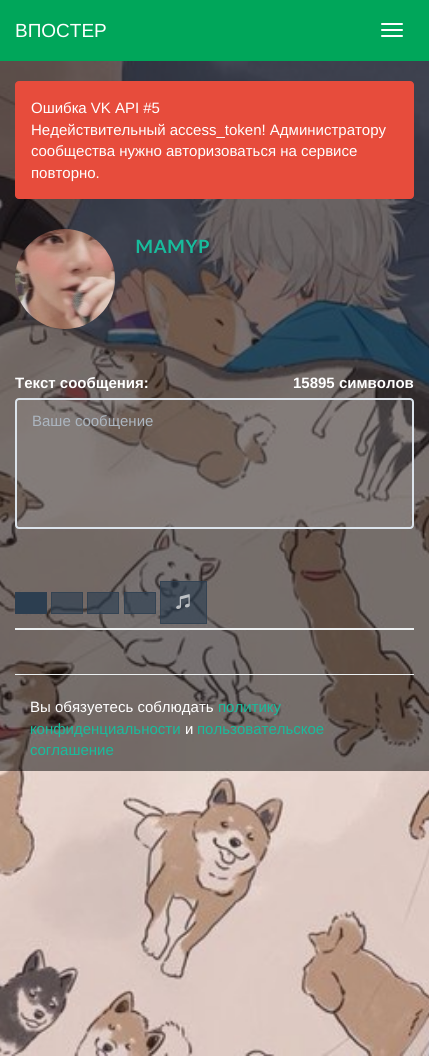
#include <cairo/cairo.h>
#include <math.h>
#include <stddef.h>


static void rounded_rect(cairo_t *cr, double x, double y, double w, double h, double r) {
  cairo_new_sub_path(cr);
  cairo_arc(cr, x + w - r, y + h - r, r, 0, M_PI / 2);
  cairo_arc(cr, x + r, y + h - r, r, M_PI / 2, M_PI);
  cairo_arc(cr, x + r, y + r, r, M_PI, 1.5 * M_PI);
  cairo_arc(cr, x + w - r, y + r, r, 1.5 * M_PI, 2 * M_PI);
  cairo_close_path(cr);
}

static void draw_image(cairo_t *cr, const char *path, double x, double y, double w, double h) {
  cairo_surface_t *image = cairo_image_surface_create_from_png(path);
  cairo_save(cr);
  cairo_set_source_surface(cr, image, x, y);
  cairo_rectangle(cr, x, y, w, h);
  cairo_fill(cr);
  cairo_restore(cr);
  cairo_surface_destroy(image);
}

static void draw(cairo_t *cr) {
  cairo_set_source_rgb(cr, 1, 1, 1);
  cairo_paint(cr);
  draw_image(cr, "images/1.png", 0, 61, 429, 995);
  cairo_set_source_rgb(cr, 0, 166 / 255.0, 90 / 255.0);
  cairo_rectangle(cr, 0, 0, 429, 61);
  cairo_fill(cr);
  cairo_set_source_rgb(cr, 1, 1, 1);
  rounded_rect(cr, 381, 23, 22, 2, 1);
  cairo_fill(cr);
  rounded_rect(cr, 381, 29, 22, 2, 1);
  cairo_fill(cr);
  rounded_rect(cr, 381, 35, 22, 2, 1);
  cairo_fill(cr);
  cairo_set_source_rgba(cr, 0, 0, 0, 0.5);
  cairo_rectangle(cr, 0, 61, 429, 710);
  cairo_fill(cr);
  cairo_set_source_rgb(cr, 231 / 255.0, 76 / 255.0, 60 / 255.0);
  rounded_rect(cr, 15.5, 81.5, 398, 117, 3.5);
  cairo_fill_preserve(cr);
  cairo_set_line_width(cr, 1);
  cairo_stroke(cr);
  draw_image(cr, "images/2.png", 15, 229, 100, 100);
  cairo_set_source_rgba(cr, 1, 1, 1, 0.1);
  rounded_rect(cr, 16, 399, 397, 129, 3);
  cairo_fill_preserve(cr);
  cairo_set_source_rgb(cr, 220 / 255.0, 228 / 255.0, 236 / 255.0);
  cairo_set_line_width(cr, 2);
  cairo_stroke(cr);
  cairo_set_source_rgb(cr, 44 / 255.0, 62 / 255.0, 80 / 255.0);
  cairo_rectangle(cr, 15, 592, 32, 22);
  cairo_fill(cr);
  cairo_set_source_rgba(cr, 44 / 255.0, 62 / 255.0, 80 / 255.0, 0.65);
  cairo_rectangle(cr, 51, 592, 32, 22);
  cairo_fill(cr);
  cairo_rectangle(cr, 51.5, 592.5, 31, 21);
  cairo_set_line_width(cr, 1);
  cairo_stroke(cr);
  cairo_rectangle(cr, 87, 592, 32, 22);
  cairo_fill(cr);
  cairo_rectangle(cr, 87.5, 592.5, 31, 21);
  cairo_stroke(cr);
  cairo_rectangle(cr, 124, 592, 32, 22);
  cairo_fill(cr);
  cairo_rectangle(cr, 124.5, 592.5, 31, 21);
  cairo_stroke(cr);
  cairo_rectangle(cr, 160, 581, 47, 43);
  cairo_fill(cr);
  cairo_rectangle(cr, 160.5, 581.5, 46, 42);
  cairo_stroke(cr);
  draw_image(cr, "images/3.png", 176, 594, 14, 15);
  cairo_set_source_rgb(cr, 236 / 255.0, 240 / 255.0, 241 / 255.0);
  cairo_rectangle(cr, 15, 628, 399, 2);
  cairo_fill(cr);
  cairo_rectangle(cr, 15, 674, 399, 1);
  cairo_fill(cr);
  cairo_select_font_face(cr, "Liberation Sans", CAIRO_FONT_SLANT_NORMAL, CAIRO_FONT_WEIGHT_NORMAL);
  cairo_set_font_size(cr, 19);
  cairo_set_source_rgb(cr, 1, 1, 1);
  cairo_move_to(cr, 15, 37);
  cairo_show_text(cr, "ВПОСТЕР");
  cairo_set_font_size(cr, 15);
  cairo_move_to(cr, 31, 113);
  cairo_show_text(cr, "Ошибка VK API #5");
  cairo_move_to(cr, 31, 135);
  cairo_show_text(cr, "Недействительный access_token! Администратору");
  cairo_move_to(cr, 31, 156);
  cairo_show_text(cr, "сообщества нужно авторизоваться на сервисе");
  cairo_move_to(cr, 31, 178);
  cairo_show_text(cr, "повторно.");
  cairo_select_font_face(cr, "Lato Medium", CAIRO_FONT_SLANT_NORMAL, CAIRO_FONT_WEIGHT_NORMAL);
  cairo_set_font_size(cr, 26);
  cairo_set_source_rgb(cr, 24 / 255.0, 188 / 255.0, 156 / 255.0);
  cairo_move_to(cr, 135, 253);
  cairo_show_text(cr, "мᴀмʏᴘ");
  cairo_select_font_face(cr, "Liberation Sans", CAIRO_FONT_SLANT_NORMAL, CAIRO_FONT_WEIGHT_BOLD);
  cairo_set_font_size(cr, 15);
  cairo_set_source_rgb(cr, 1, 1, 1);
  cairo_move_to(cr, 15, 388);
  cairo_show_text(cr, "Текст сообщения:");
  cairo_move_to(cr, 293, 388);
  cairo_show_text(cr, "15895 символов");
  cairo_select_font_face(cr, "Liberation Sans", CAIRO_FONT_SLANT_NORMAL, CAIRO_FONT_WEIGHT_NORMAL);
  cairo_set_source_rgb(cr, 172 / 255.0, 182 / 255.0, 192 / 255.0);
  cairo_move_to(cr, 32, 426);
  cairo_show_text(cr, "Ваше сообщение");
  cairo_set_source_rgb(cr, 1, 1, 1);
  cairo_move_to(cr, 30, 712);
  cairo_show_text(cr, "Вы обязуетесь соблюдать");
  cairo_set_source_rgb(cr, 24 / 255.0, 188 / 255.0, 156 / 255.0);
  cairo_move_to(cr, 218, 712);
  cairo_show_text(cr, "политику");
  cairo_move_to(cr, 30, 734);
  cairo_show_text(cr, "конфиденциальности");
  cairo_set_source_rgb(cr, 1, 1, 1);
  cairo_move_to(cr, 185, 734);
  cairo_show_text(cr, "и");
  cairo_set_source_rgb(cr, 24 / 255.0, 188 / 255.0, 156 / 255.0);
  cairo_move_to(cr, 197, 734);
  cairo_show_text(cr, "пользовательское");
  cairo_move_to(cr, 30, 755);
  cairo_show_text(cr, "соглашение");
}

int main(void) {
  cairo_surface_t *surface = cairo_image_surface_create(CAIRO_FORMAT_RGB24, 429, 1056);
  cairo_t *cr = cairo_create(surface);
  cairo_font_options_t *options = cairo_font_options_create();
  cairo_font_options_set_hint_metrics(options, CAIRO_HINT_METRICS_OFF);
  cairo_font_options_set_hint_style(options, CAIRO_HINT_STYLE_NONE);
  cairo_set_font_options(cr, options);
  cairo_set_miter_limit(cr, 4);
  draw(cr);
  cairo_surface_write_to_png(surface, "out.png");
  cairo_font_options_destroy(options);
  cairo_destroy(cr);
  cairo_surface_destroy(surface);
  return 0;
}
